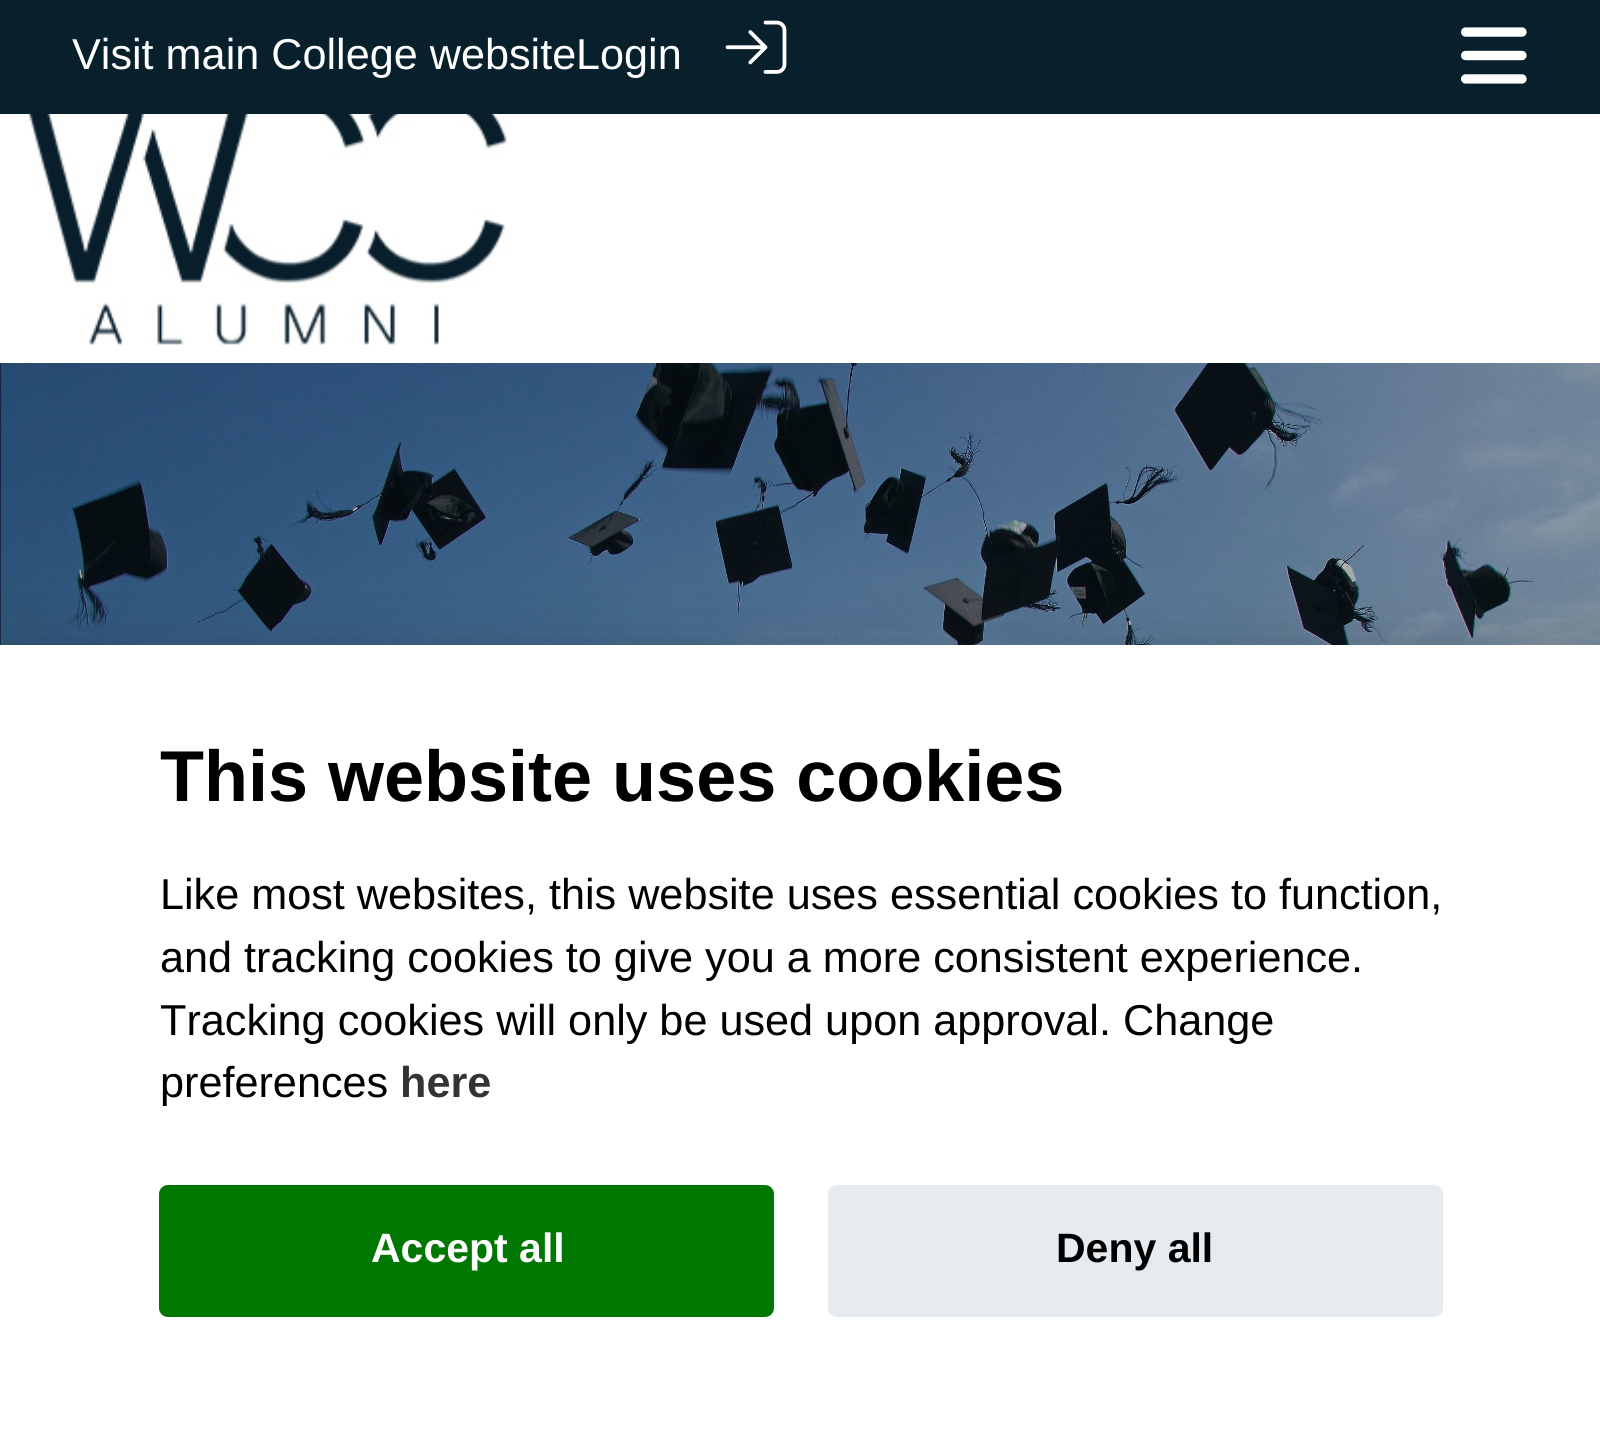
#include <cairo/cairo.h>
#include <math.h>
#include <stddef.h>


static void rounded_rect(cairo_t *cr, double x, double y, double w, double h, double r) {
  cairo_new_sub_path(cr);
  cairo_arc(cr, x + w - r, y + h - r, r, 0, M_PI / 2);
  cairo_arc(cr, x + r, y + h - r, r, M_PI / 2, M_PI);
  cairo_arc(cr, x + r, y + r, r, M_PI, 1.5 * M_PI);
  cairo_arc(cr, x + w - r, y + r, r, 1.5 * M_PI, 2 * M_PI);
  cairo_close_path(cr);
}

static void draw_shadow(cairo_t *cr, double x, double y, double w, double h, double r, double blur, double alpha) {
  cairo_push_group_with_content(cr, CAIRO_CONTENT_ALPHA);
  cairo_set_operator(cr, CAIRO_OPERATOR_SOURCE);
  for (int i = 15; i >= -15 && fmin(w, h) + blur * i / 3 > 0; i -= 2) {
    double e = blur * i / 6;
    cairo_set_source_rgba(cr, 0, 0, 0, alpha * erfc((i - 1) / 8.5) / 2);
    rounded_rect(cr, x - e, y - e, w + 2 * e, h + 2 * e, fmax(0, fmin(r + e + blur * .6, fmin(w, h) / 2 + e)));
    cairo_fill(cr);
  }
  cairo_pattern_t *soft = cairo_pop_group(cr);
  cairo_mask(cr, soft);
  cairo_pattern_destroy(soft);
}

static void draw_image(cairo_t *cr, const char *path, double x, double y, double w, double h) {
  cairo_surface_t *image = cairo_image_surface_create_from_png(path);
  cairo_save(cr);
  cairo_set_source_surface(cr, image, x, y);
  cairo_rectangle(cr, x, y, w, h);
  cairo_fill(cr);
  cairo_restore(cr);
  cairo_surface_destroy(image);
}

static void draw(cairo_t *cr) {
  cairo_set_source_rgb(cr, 1, 1, 1);
  cairo_paint(cr);
  cairo_set_source_rgb(cr, 8 / 255.0, 31 / 255.0, 44 / 255.0);
  cairo_rectangle(cr, 0, 0, 1600, 114);
  cairo_fill(cr);
  draw_image(cr, "images/1.png", 725, 20, 62, 54);
  draw_image(cr, "images/2.png", 1461, 27, 66, 57);
  draw_image(cr, "images/3.png", 21, 114, 486, 231);
  draw_image(cr, "images/4.png", 0, 363, 1600, 282);
  cairo_set_source_rgb(cr, 2 / 255.0, 2 / 255.0, 3 / 255.0);
  draw_shadow(cr, 0, 675, 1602, 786, 0, 45, 0.28);
  cairo_set_source_rgb(cr, 1, 1, 1);
  cairo_rectangle(cr, 0, 645, 1600, 785);
  cairo_fill(cr);
  cairo_set_source_rgb(cr, 0, 119 / 255.0, 0);
  rounded_rect(cr, 159, 1185, 615, 132, 9);
  cairo_fill(cr);
  cairo_set_source_rgb(cr, 229 / 255.0, 235 / 255.0, 239 / 255.0);
  rounded_rect(cr, 828, 1185, 615, 132, 9);
  cairo_fill(cr);
  cairo_select_font_face(cr, "Liberation Sans", CAIRO_FONT_SLANT_NORMAL, CAIRO_FONT_WEIGHT_NORMAL);
  cairo_set_font_size(cr, 43.2);
  cairo_set_source_rgb(cr, 1, 1, 1);
  cairo_move_to(cr, 72, 69);
  cairo_show_text(cr, "Visit main College website");
  cairo_move_to(cr, 576, 69);
  cairo_show_text(cr, "Login");
  cairo_select_font_face(cr, "Liberation Sans", CAIRO_FONT_SLANT_NORMAL, CAIRO_FONT_WEIGHT_BOLD);
  cairo_set_font_size(cr, 72);
  cairo_set_source_rgb(cr, 0, 0, 0);
  cairo_move_to(cr, 160, 801);
  cairo_show_text(cr, "This website uses cookies");
  cairo_select_font_face(cr, "Liberation Sans", CAIRO_FONT_SLANT_NORMAL, CAIRO_FONT_WEIGHT_NORMAL);
  cairo_set_font_size(cr, 43.2);
  cairo_move_to(cr, 160, 909);
  cairo_show_text(cr, "Like most websites, this website uses essential cookies to function,");
  cairo_move_to(cr, 160, 972);
  cairo_show_text(cr, "and tracking cookies to give you a more consistent experience.");
  cairo_move_to(cr, 160, 1035);
  cairo_show_text(cr, "Tracking cookies will only be used upon approval. Change");
  cairo_move_to(cr, 160, 1097);
  cairo_show_text(cr, "preferences");
  cairo_select_font_face(cr, "Liberation Sans", CAIRO_FONT_SLANT_NORMAL, CAIRO_FONT_WEIGHT_BOLD);
  cairo_set_source_rgb(cr, 51 / 255.0, 51 / 255.0, 51 / 255.0);
  cairo_move_to(cr, 400, 1097);
  cairo_show_text(cr, "here");
  cairo_set_font_size(cr, 41);
  cairo_set_source_rgb(cr, 1, 1, 1);
  cairo_move_to(cr, 371, 1262);
  cairo_show_text(cr, "Accept all");
  cairo_set_source_rgb(cr, 0, 0, 0);
  cairo_move_to(cr, 1056, 1262);
  cairo_show_text(cr, "Deny all");
}

int main(void) {
  cairo_surface_t *surface = cairo_image_surface_create(CAIRO_FORMAT_RGB24, 1600, 1430);
  cairo_t *cr = cairo_create(surface);
  cairo_font_options_t *options = cairo_font_options_create();
  cairo_font_options_set_hint_metrics(options, CAIRO_HINT_METRICS_OFF);
  cairo_font_options_set_hint_style(options, CAIRO_HINT_STYLE_NONE);
  cairo_set_font_options(cr, options);
  cairo_set_miter_limit(cr, 4);
  draw(cr);
  cairo_surface_write_to_png(surface, "out.png");
  cairo_font_options_destroy(options);
  cairo_destroy(cr);
  cairo_surface_destroy(surface);
  return 0;
}
